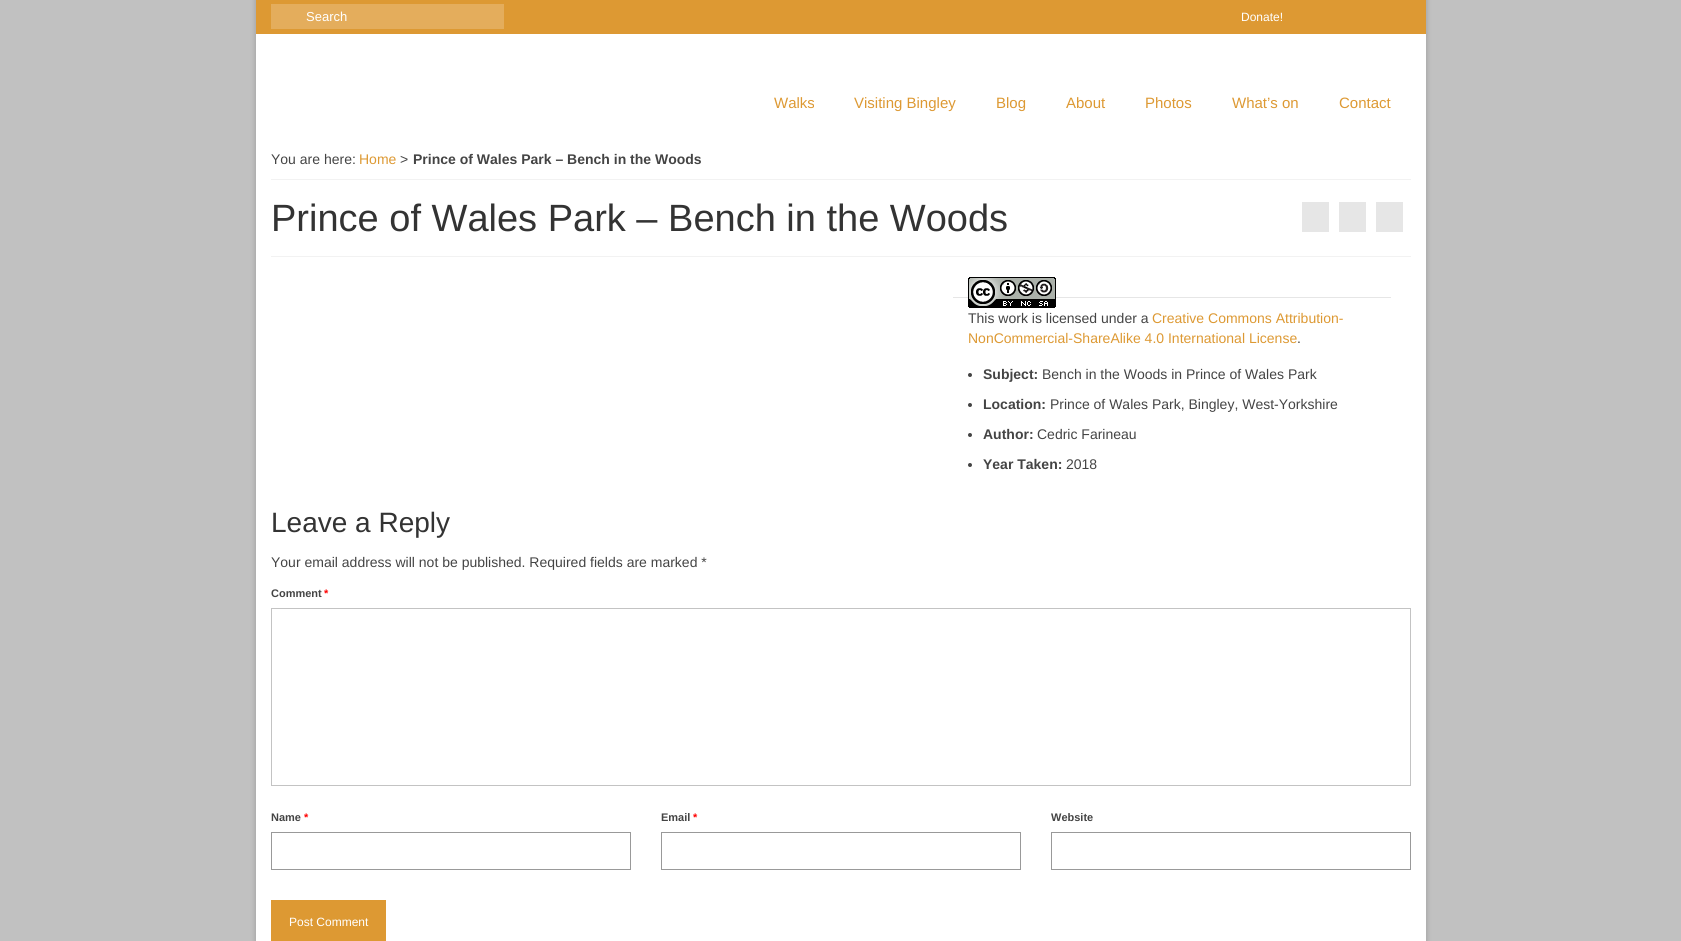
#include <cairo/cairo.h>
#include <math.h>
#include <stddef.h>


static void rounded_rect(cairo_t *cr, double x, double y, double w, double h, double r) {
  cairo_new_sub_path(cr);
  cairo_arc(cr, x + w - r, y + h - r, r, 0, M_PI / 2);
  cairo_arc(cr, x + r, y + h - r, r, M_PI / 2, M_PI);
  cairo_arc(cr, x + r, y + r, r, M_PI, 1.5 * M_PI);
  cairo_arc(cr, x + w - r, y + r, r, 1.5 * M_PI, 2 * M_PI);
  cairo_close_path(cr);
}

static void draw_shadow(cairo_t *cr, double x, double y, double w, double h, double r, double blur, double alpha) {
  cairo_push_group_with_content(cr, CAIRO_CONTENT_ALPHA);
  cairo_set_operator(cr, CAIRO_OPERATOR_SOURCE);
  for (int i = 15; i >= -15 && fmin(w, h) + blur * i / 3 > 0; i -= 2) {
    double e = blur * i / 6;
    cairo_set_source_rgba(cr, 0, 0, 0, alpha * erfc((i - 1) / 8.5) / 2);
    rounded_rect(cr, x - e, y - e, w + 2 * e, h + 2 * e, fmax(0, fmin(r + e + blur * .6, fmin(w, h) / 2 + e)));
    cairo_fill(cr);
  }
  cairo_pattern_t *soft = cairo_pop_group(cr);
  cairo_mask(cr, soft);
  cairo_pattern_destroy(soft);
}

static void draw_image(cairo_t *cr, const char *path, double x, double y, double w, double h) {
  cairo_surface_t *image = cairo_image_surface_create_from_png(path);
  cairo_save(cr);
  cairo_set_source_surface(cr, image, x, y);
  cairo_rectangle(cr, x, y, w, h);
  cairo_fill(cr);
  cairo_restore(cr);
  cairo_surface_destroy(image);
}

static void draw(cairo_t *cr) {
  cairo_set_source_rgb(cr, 193 / 255.0, 193 / 255.0, 193 / 255.0);
  cairo_paint(cr);
  cairo_set_source_rgb(cr, 0, 0, 0);
  draw_shadow(cr, 255, -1, 1172, 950, 0, 2.5, 0.16);
  cairo_set_source_rgb(cr, 1, 1, 1);
  cairo_rectangle(cr, 256, 34, 1170, 907);
  cairo_fill(cr);
  cairo_set_source_rgb(cr, 221 / 255.0, 153 / 255.0, 51 / 255.0);
  cairo_rectangle(cr, 256, 0, 1170, 34);
  cairo_fill(cr);
  cairo_set_source_rgb(cr, 228 / 255.0, 173 / 255.0, 92 / 255.0);
  cairo_rectangle(cr, 271, 4, 233, 25);
  cairo_fill(cr);
  cairo_set_source_rgb(cr, 242 / 255.0, 242 / 255.0, 242 / 255.0);
  cairo_rectangle(cr, 271, 179, 1140, 1);
  cairo_fill(cr);
  cairo_rectangle(cr, 271, 256, 1140, 1);
  cairo_fill(cr);
  cairo_set_source_rgb(cr, 230 / 255.0, 230 / 255.0, 230 / 255.0);
  cairo_rectangle(cr, 1302, 202, 27, 30);
  cairo_fill(cr);
  cairo_rectangle(cr, 1339, 202, 27, 30);
  cairo_fill(cr);
  cairo_rectangle(cr, 1376, 202, 27, 30);
  cairo_fill(cr);
  cairo_rectangle(cr, 953, 297, 438, 1);
  cairo_fill(cr);
  draw_image(cr, "images/1.png", 968, 277, 88, 31);
  cairo_set_source_rgb(cr, 68 / 255.0, 68 / 255.0, 68 / 255.0);
  cairo_arc(cr, 970, 375, 2, 0, 2 * M_PI);
  cairo_fill(cr);
  cairo_arc(cr, 970, 405, 2, 0, 2 * M_PI);
  cairo_fill(cr);
  cairo_arc(cr, 970, 435, 2, 0, 2 * M_PI);
  cairo_fill(cr);
  cairo_arc(cr, 970, 465, 2, 0, 2 * M_PI);
  cairo_fill(cr);
  cairo_rectangle(cr, 271.5, 608.5, 1139, 177);
  cairo_set_source_rgb(cr, 195 / 255.0, 195 / 255.0, 195 / 255.0);
  cairo_set_line_width(cr, 1);
  cairo_stroke(cr);
  cairo_rectangle(cr, 271.5, 832.5, 359, 37);
  cairo_set_source_rgb(cr, 153 / 255.0, 153 / 255.0, 153 / 255.0);
  cairo_stroke(cr);
  cairo_rectangle(cr, 661.5, 832.5, 359, 37);
  cairo_stroke(cr);
  cairo_rectangle(cr, 1051.5, 832.5, 359, 37);
  cairo_stroke(cr);
  cairo_set_source_rgb(cr, 221 / 255.0, 153 / 255.0, 51 / 255.0);
  cairo_rectangle(cr, 271, 900, 115, 41);
  cairo_fill(cr);
  cairo_select_font_face(cr, "Liberation Sans", CAIRO_FONT_SLANT_NORMAL, CAIRO_FONT_WEIGHT_NORMAL);
  cairo_set_font_size(cr, 13);
  cairo_set_source_rgb(cr, 1, 1, 1);
  cairo_move_to(cr, 306, 21);
  cairo_show_text(cr, "Search");
  cairo_set_font_size(cr, 12);
  cairo_move_to(cr, 1241, 21);
  cairo_show_text(cr, "Donate!");
  cairo_set_font_size(cr, 15);
  cairo_set_source_rgb(cr, 221 / 255.0, 153 / 255.0, 51 / 255.0);
  cairo_move_to(cr, 774, 108);
  cairo_show_text(cr, "Walks");
  cairo_move_to(cr, 854, 108);
  cairo_show_text(cr, "Visiting Bingley");
  cairo_move_to(cr, 996, 108);
  cairo_show_text(cr, "Blog");
  cairo_move_to(cr, 1066, 108);
  cairo_show_text(cr, "About");
  cairo_move_to(cr, 1145, 108);
  cairo_show_text(cr, "Photos");
  cairo_move_to(cr, 1232, 108);
  cairo_show_text(cr, "What’s on");
  cairo_move_to(cr, 1339, 108);
  cairo_show_text(cr, "Contact");
  cairo_set_font_size(cr, 14);
  cairo_set_source_rgb(cr, 68 / 255.0, 68 / 255.0, 68 / 255.0);
  cairo_move_to(cr, 271, 164);
  cairo_show_text(cr, "You are here:");
  cairo_set_source_rgb(cr, 221 / 255.0, 153 / 255.0, 51 / 255.0);
  cairo_move_to(cr, 359, 164);
  cairo_show_text(cr, "Home");
  cairo_set_source_rgb(cr, 68 / 255.0, 68 / 255.0, 68 / 255.0);
  cairo_move_to(cr, 400, 164);
  cairo_show_text(cr, ">");
  cairo_select_font_face(cr, "Liberation Sans", CAIRO_FONT_SLANT_NORMAL, CAIRO_FONT_WEIGHT_BOLD);
  cairo_move_to(cr, 413, 164);
  cairo_show_text(cr, "Prince of Wales Park – Bench in the Woods");
  cairo_select_font_face(cr, "Liberation Sans", CAIRO_FONT_SLANT_NORMAL, CAIRO_FONT_WEIGHT_NORMAL);
  cairo_set_font_size(cr, 38);
  cairo_set_source_rgb(cr, 51 / 255.0, 51 / 255.0, 51 / 255.0);
  cairo_move_to(cr, 271, 231);
  cairo_show_text(cr, "Prince of Wales Park – Bench in the Woods");
  cairo_set_font_size(cr, 14);
  cairo_set_source_rgb(cr, 68 / 255.0, 68 / 255.0, 68 / 255.0);
  cairo_move_to(cr, 968, 323);
  cairo_show_text(cr, "This work is licensed under a");
  cairo_set_source_rgb(cr, 221 / 255.0, 153 / 255.0, 51 / 255.0);
  cairo_move_to(cr, 1152, 323);
  cairo_show_text(cr, "Creative Commons Attribution-");
  cairo_move_to(cr, 968, 343);
  cairo_show_text(cr, "NonCommercial-ShareAlike 4.0 International License");
  cairo_set_source_rgb(cr, 68 / 255.0, 68 / 255.0, 68 / 255.0);
  cairo_move_to(cr, 1297, 343);
  cairo_show_text(cr, ".");
  cairo_select_font_face(cr, "Liberation Sans", CAIRO_FONT_SLANT_NORMAL, CAIRO_FONT_WEIGHT_BOLD);
  cairo_move_to(cr, 983, 379);
  cairo_show_text(cr, "Subject:");
  cairo_select_font_face(cr, "Liberation Sans", CAIRO_FONT_SLANT_NORMAL, CAIRO_FONT_WEIGHT_NORMAL);
  cairo_move_to(cr, 1042, 379);
  cairo_show_text(cr, "Bench in the Woods in Prince of Wales Park");
  cairo_select_font_face(cr, "Liberation Sans", CAIRO_FONT_SLANT_NORMAL, CAIRO_FONT_WEIGHT_BOLD);
  cairo_move_to(cr, 983, 409);
  cairo_show_text(cr, "Location:");
  cairo_select_font_face(cr, "Liberation Sans", CAIRO_FONT_SLANT_NORMAL, CAIRO_FONT_WEIGHT_NORMAL);
  cairo_move_to(cr, 1050, 409);
  cairo_show_text(cr, "Prince of Wales Park, Bingley, West-Yorkshire");
  cairo_select_font_face(cr, "Liberation Sans", CAIRO_FONT_SLANT_NORMAL, CAIRO_FONT_WEIGHT_BOLD);
  cairo_move_to(cr, 983, 439);
  cairo_show_text(cr, "Author:");
  cairo_select_font_face(cr, "Liberation Sans", CAIRO_FONT_SLANT_NORMAL, CAIRO_FONT_WEIGHT_NORMAL);
  cairo_move_to(cr, 1037, 439);
  cairo_show_text(cr, "Cedric Farineau");
  cairo_select_font_face(cr, "Liberation Sans", CAIRO_FONT_SLANT_NORMAL, CAIRO_FONT_WEIGHT_BOLD);
  cairo_move_to(cr, 983, 469);
  cairo_show_text(cr, "Year Taken:");
  cairo_select_font_face(cr, "Liberation Sans", CAIRO_FONT_SLANT_NORMAL, CAIRO_FONT_WEIGHT_NORMAL);
  cairo_move_to(cr, 1066, 469);
  cairo_show_text(cr, "2018");
  cairo_set_font_size(cr, 28);
  cairo_set_source_rgb(cr, 51 / 255.0, 51 / 255.0, 51 / 255.0);
  cairo_move_to(cr, 271, 532);
  cairo_show_text(cr, "Leave a Reply");
  cairo_set_font_size(cr, 14);
  cairo_set_source_rgb(cr, 68 / 255.0, 68 / 255.0, 68 / 255.0);
  cairo_move_to(cr, 271, 567);
  cairo_show_text(cr, "Your email address will not be published. Required fields are marked *");
  cairo_select_font_face(cr, "Liberation Sans", CAIRO_FONT_SLANT_NORMAL, CAIRO_FONT_WEIGHT_BOLD);
  cairo_set_font_size(cr, 11);
  cairo_move_to(cr, 271, 597);
  cairo_show_text(cr, "Comment");
  cairo_set_source_rgb(cr, 1, 0, 0);
  cairo_move_to(cr, 324, 597);
  cairo_show_text(cr, "*");
  cairo_set_source_rgb(cr, 68 / 255.0, 68 / 255.0, 68 / 255.0);
  cairo_move_to(cr, 271, 821);
  cairo_show_text(cr, "Name");
  cairo_set_source_rgb(cr, 1, 0, 0);
  cairo_move_to(cr, 304, 821);
  cairo_show_text(cr, "*");
  cairo_set_source_rgb(cr, 68 / 255.0, 68 / 255.0, 68 / 255.0);
  cairo_move_to(cr, 661, 821);
  cairo_show_text(cr, "Email");
  cairo_set_source_rgb(cr, 1, 0, 0);
  cairo_move_to(cr, 693, 821);
  cairo_show_text(cr, "*");
  cairo_set_source_rgb(cr, 68 / 255.0, 68 / 255.0, 68 / 255.0);
  cairo_move_to(cr, 1051, 821);
  cairo_show_text(cr, "Website");
  cairo_select_font_face(cr, "Liberation Sans", CAIRO_FONT_SLANT_NORMAL, CAIRO_FONT_WEIGHT_NORMAL);
  cairo_set_font_size(cr, 12);
  cairo_set_source_rgb(cr, 1, 1, 1);
  cairo_move_to(cr, 289, 926);
  cairo_show_text(cr, "Post Comment");
}

int main(void) {
  cairo_surface_t *surface = cairo_image_surface_create(CAIRO_FORMAT_RGB24, 1681, 941);
  cairo_t *cr = cairo_create(surface);
  cairo_font_options_t *options = cairo_font_options_create();
  cairo_font_options_set_hint_metrics(options, CAIRO_HINT_METRICS_OFF);
  cairo_font_options_set_hint_style(options, CAIRO_HINT_STYLE_NONE);
  cairo_set_font_options(cr, options);
  cairo_set_miter_limit(cr, 4);
  draw(cr);
  cairo_surface_write_to_png(surface, "out.png");
  cairo_font_options_destroy(options);
  cairo_destroy(cr);
  cairo_surface_destroy(surface);
  return 0;
}
